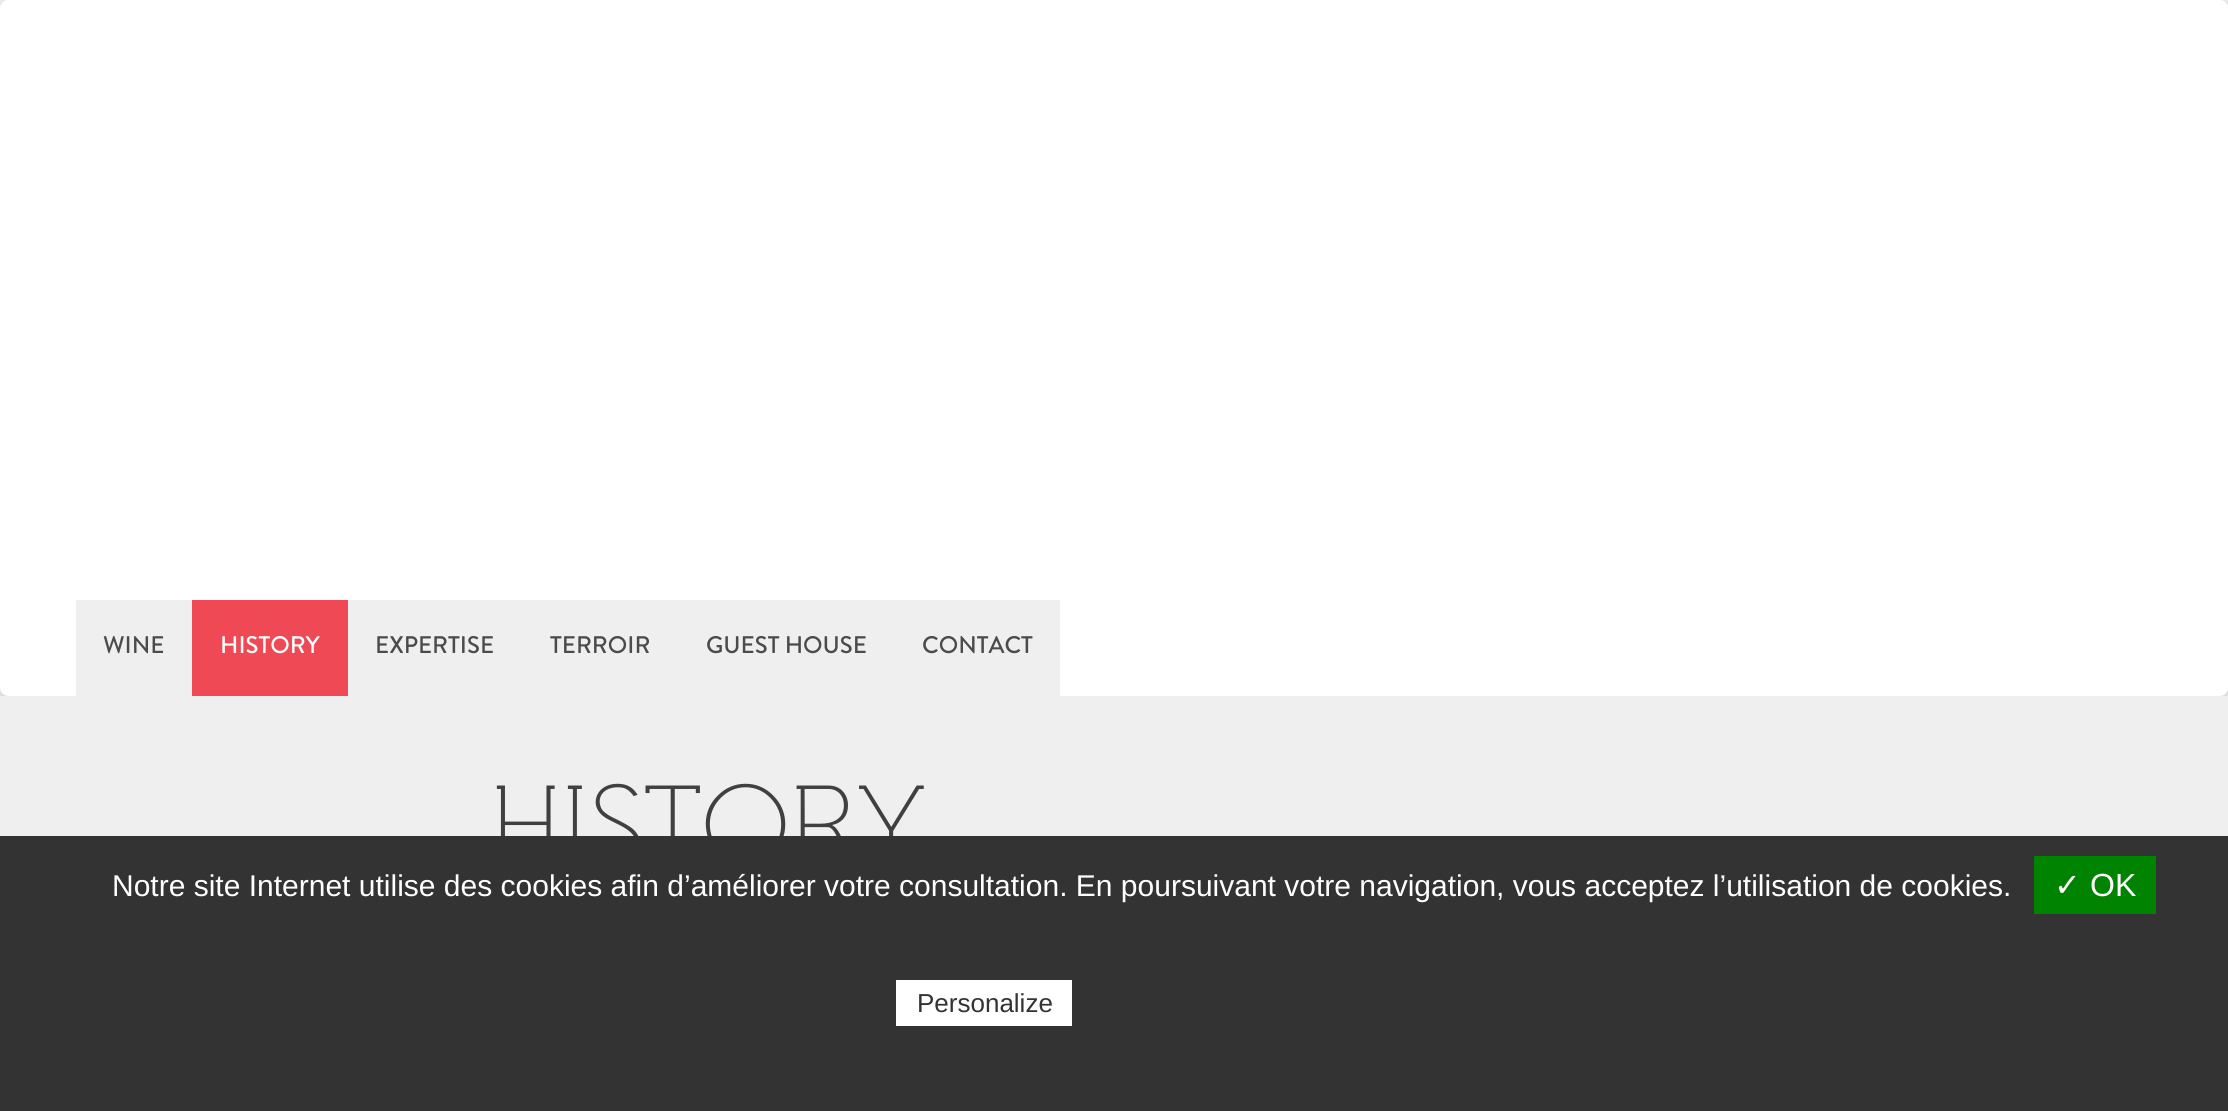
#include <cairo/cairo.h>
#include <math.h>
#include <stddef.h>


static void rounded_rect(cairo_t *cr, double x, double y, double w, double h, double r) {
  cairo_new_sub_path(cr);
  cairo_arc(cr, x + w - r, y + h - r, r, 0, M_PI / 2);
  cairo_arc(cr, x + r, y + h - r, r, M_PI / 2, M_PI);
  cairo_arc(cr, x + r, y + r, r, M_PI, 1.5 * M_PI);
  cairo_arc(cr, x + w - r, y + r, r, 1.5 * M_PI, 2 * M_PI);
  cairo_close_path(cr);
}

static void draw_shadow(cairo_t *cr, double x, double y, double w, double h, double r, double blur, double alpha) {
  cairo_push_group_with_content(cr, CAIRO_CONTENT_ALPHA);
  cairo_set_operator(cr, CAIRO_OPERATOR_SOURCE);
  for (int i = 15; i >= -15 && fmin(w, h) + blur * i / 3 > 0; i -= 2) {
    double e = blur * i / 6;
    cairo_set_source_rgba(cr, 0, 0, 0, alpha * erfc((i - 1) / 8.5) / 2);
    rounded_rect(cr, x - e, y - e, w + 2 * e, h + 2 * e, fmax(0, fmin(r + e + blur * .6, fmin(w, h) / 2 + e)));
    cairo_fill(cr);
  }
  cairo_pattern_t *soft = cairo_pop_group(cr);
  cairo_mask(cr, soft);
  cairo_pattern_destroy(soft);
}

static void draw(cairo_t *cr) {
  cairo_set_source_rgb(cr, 239 / 255.0, 239 / 255.0, 239 / 255.0);
  cairo_paint(cr);
  cairo_save(cr);
  cairo_rectangle(cr, 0, 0, 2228, 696);
  cairo_clip(cr);
  cairo_set_source_rgb(cr, 0, 0, 0);
  draw_shadow(cr, 0, 2, 2228, 696, 8, 4, 0.2);
  cairo_restore(cr);
  cairo_set_source_rgb(cr, 1, 1, 1);
  rounded_rect(cr, 0, 0, 2228, 696, 8);
  cairo_fill(cr);
  cairo_set_source_rgb(cr, 239 / 255.0, 239 / 255.0, 239 / 255.0);
  cairo_rectangle(cr, 76, 600, 116, 96);
  cairo_fill(cr);
  cairo_set_source_rgb(cr, 238 / 255.0, 73 / 255.0, 84 / 255.0);
  cairo_rectangle(cr, 192, 600, 156, 96);
  cairo_fill(cr);
  cairo_set_source_rgb(cr, 239 / 255.0, 239 / 255.0, 239 / 255.0);
  cairo_rectangle(cr, 348, 600, 712, 96);
  cairo_fill(cr);
  cairo_select_font_face(cr, "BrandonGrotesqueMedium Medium", CAIRO_FONT_SLANT_NORMAL, CAIRO_FONT_WEIGHT_NORMAL);
  cairo_set_font_size(cr, 24);
  cairo_set_source_rgb(cr, 75 / 255.0, 75 / 255.0, 75 / 255.0);
  cairo_move_to(cr, 103, 653);
  cairo_show_text(cr, "WINE");
  cairo_set_source_rgb(cr, 1, 1, 1);
  cairo_move_to(cr, 220, 653);
  cairo_show_text(cr, "HISTORY");
  cairo_set_source_rgb(cr, 75 / 255.0, 75 / 255.0, 75 / 255.0);
  cairo_move_to(cr, 375, 653);
  cairo_show_text(cr, "EXPERTISE");
  cairo_move_to(cr, 550, 653);
  cairo_show_text(cr, "TERROIR");
  cairo_move_to(cr, 706, 653);
  cairo_show_text(cr, "GUEST HOUSE");
  cairo_move_to(cr, 922, 653);
  cairo_show_text(cr, "CONTACT");
  cairo_select_font_face(cr, "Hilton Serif", CAIRO_FONT_SLANT_NORMAL, CAIRO_FONT_WEIGHT_NORMAL);
  cairo_set_font_size(cr, 116);
  cairo_set_source_rgb(cr, 63 / 255.0, 64 / 255.0, 64 / 255.0);
  cairo_move_to(cr, 490, 863);
  cairo_show_text(cr, "HISTORY");
  cairo_set_source_rgb(cr, 51 / 255.0, 51 / 255.0, 51 / 255.0);
  cairo_rectangle(cr, 0, 836, 2228, 275);
  cairo_fill(cr);
  cairo_select_font_face(cr, "Liberation Sans", CAIRO_FONT_SLANT_NORMAL, CAIRO_FONT_WEIGHT_NORMAL);
  cairo_set_font_size(cr, 30);
  cairo_set_source_rgb(cr, 1, 1, 1);
  cairo_move_to(cr, 112, 896);
  cairo_show_text(cr, "Notre site Internet utilise des cookies afin d’améliorer votre consultation. En poursuivant votre navigation, vous acceptez l’utilisation de cookies.");
  cairo_set_source_rgb(cr, 0, 131 / 255.0, 0);
  cairo_rectangle(cr, 2034, 856, 122, 58);
  cairo_fill(cr);
  cairo_select_font_face(cr, "DejaVu Sans", CAIRO_FONT_SLANT_NORMAL, CAIRO_FONT_WEIGHT_NORMAL);
  cairo_set_font_size(cr, 32);
  cairo_set_source_rgb(cr, 1, 1, 1);
  cairo_move_to(cr, 2054, 896);
  cairo_show_text(cr, "✓");
  cairo_select_font_face(cr, "Liberation Sans", CAIRO_FONT_SLANT_NORMAL, CAIRO_FONT_WEIGHT_NORMAL);
  cairo_move_to(cr, 2090, 896);
  cairo_show_text(cr, "OK");
  cairo_rectangle(cr, 896, 980, 176, 46);
  cairo_fill(cr);
  cairo_set_font_size(cr, 26);
  cairo_set_source_rgb(cr, 51 / 255.0, 51 / 255.0, 51 / 255.0);
  cairo_move_to(cr, 917, 1012);
  cairo_show_text(cr, "Personalize");
}

int main(void) {
  cairo_surface_t *surface = cairo_image_surface_create(CAIRO_FORMAT_RGB24, 2228, 1111);
  cairo_t *cr = cairo_create(surface);
  cairo_font_options_t *options = cairo_font_options_create();
  cairo_font_options_set_hint_metrics(options, CAIRO_HINT_METRICS_OFF);
  cairo_font_options_set_hint_style(options, CAIRO_HINT_STYLE_NONE);
  cairo_set_font_options(cr, options);
  cairo_set_miter_limit(cr, 4);
  draw(cr);
  cairo_surface_write_to_png(surface, "out.png");
  cairo_font_options_destroy(options);
  cairo_destroy(cr);
  cairo_surface_destroy(surface);
  return 0;
}
